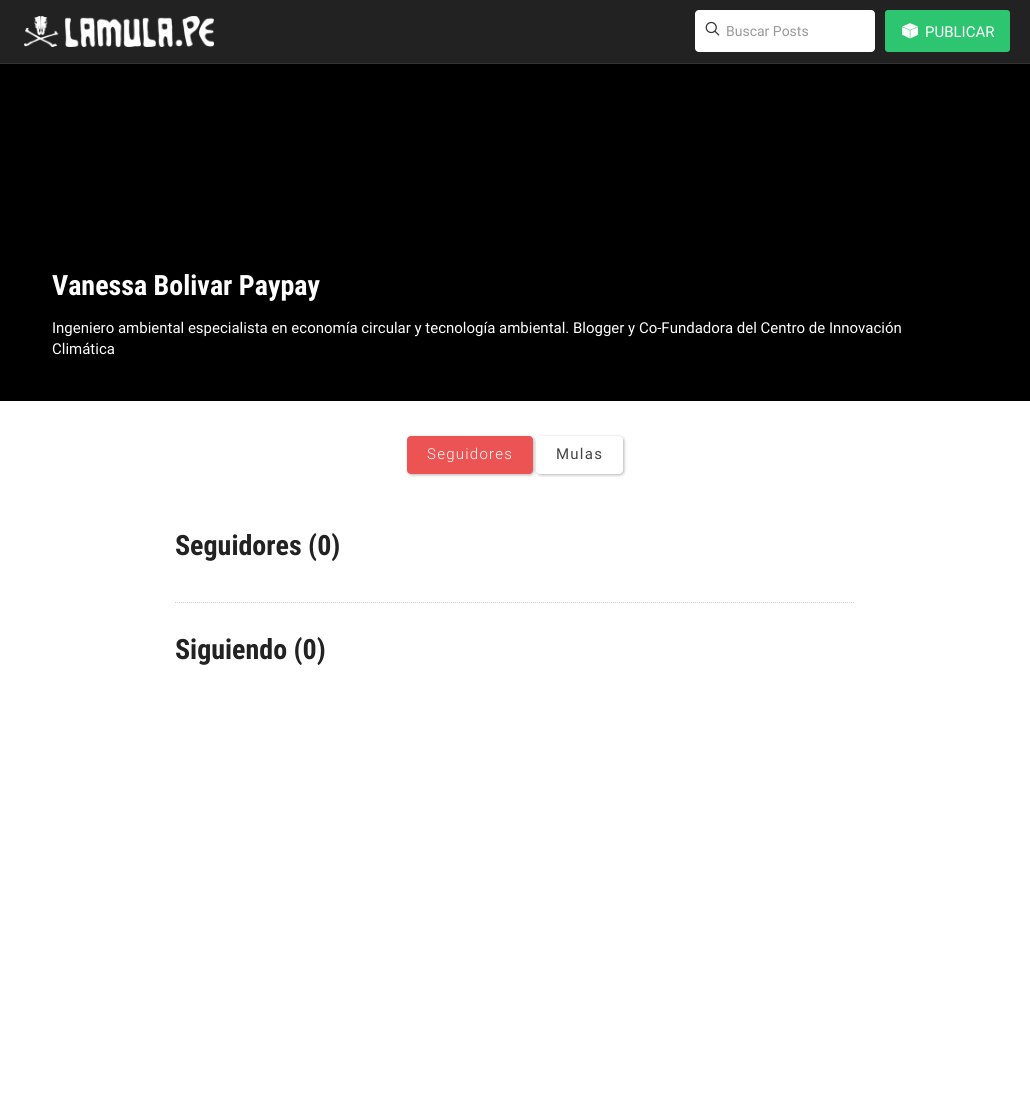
#include <cairo/cairo.h>
#include <math.h>
#include <stddef.h>


static void draw_spaced(cairo_t *cr, double x, double y, const char *s, double letter, double word) {
  cairo_move_to(cr, x, y);
  while (*s) {
    char ch[5] = {0};
    int n = 0;
    do ch[n++] = *s++; while ((*s & 0xC0) == 0x80);
    cairo_show_text(cr, ch);
    cairo_rel_move_to(cr, letter + word * (*ch == ' '), 0);
  }
}

static void rounded_rect(cairo_t *cr, double x, double y, double w, double h, double r) {
  cairo_new_sub_path(cr);
  cairo_arc(cr, x + w - r, y + h - r, r, 0, M_PI / 2);
  cairo_arc(cr, x + r, y + h - r, r, M_PI / 2, M_PI);
  cairo_arc(cr, x + r, y + r, r, M_PI, 1.5 * M_PI);
  cairo_arc(cr, x + w - r, y + r, r, 1.5 * M_PI, 2 * M_PI);
  cairo_close_path(cr);
}

static void draw_shadow(cairo_t *cr, double x, double y, double w, double h, double r, double blur, double alpha) {
  cairo_push_group_with_content(cr, CAIRO_CONTENT_ALPHA);
  cairo_set_operator(cr, CAIRO_OPERATOR_SOURCE);
  for (int i = 15; i >= -15 && fmin(w, h) + blur * i / 3 > 0; i -= 2) {
    double e = blur * i / 6;
    cairo_set_source_rgba(cr, 0, 0, 0, alpha * erfc((i - 1) / 8.5) / 2);
    rounded_rect(cr, x - e, y - e, w + 2 * e, h + 2 * e, fmax(0, fmin(r + e + blur * .6, fmin(w, h) / 2 + e)));
    cairo_fill(cr);
  }
  cairo_pattern_t *soft = cairo_pop_group(cr);
  cairo_mask(cr, soft);
  cairo_pattern_destroy(soft);
}

static void draw_image(cairo_t *cr, const char *path, double x, double y, double w, double h) {
  cairo_surface_t *image = cairo_image_surface_create_from_png(path);
  cairo_save(cr);
  cairo_set_source_surface(cr, image, x, y);
  cairo_rectangle(cr, x, y, w, h);
  cairo_fill(cr);
  cairo_restore(cr);
  cairo_surface_destroy(image);
}

static void draw(cairo_t *cr) {
  cairo_set_source_rgb(cr, 1, 1, 1);
  cairo_paint(cr);
  cairo_set_source_rgb(cr, 34 / 255.0, 34 / 255.0, 34 / 255.0);
  cairo_rectangle(cr, 0, 0, 1030, 63);
  cairo_fill(cr);
  draw_image(cr, "images/1.png", 24, 16, 190, 31);
  cairo_set_source_rgb(cr, 1, 1, 1);
  rounded_rect(cr, 695, 10, 180, 42, 4);
  cairo_fill(cr);
  draw_image(cr, "images/2.png", 705, 21, 15, 15);
  cairo_set_source_rgb(cr, 46 / 255.0, 197 / 255.0, 113 / 255.0);
  rounded_rect(cr, 885, 10, 125, 42, 3);
  cairo_fill(cr);
  draw_image(cr, "images/3.png", 902, 23, 16, 16);
  cairo_set_source_rgb(cr, 0, 0, 0);
  cairo_rectangle(cr, 0, 64, 1030, 337);
  cairo_fill(cr);
  cairo_set_source_rgb(cr, 51 / 255.0, 51 / 255.0, 51 / 255.0);
  cairo_rectangle(cr, 0, 63, 1030, 1);
  cairo_fill(cr);
  cairo_set_source_rgb(cr, 0, 0, 0);
  draw_shadow(cr, 408, 437, 126, 38, 4, 1.5, 0.3);
  cairo_set_source_rgb(cr, 236 / 255.0, 84 / 255.0, 84 / 255.0);
  rounded_rect(cr, 407, 436, 126, 38, 4);
  cairo_fill(cr);
  cairo_save(cr);
  cairo_set_fill_rule(cr, CAIRO_FILL_RULE_EVEN_ODD);
  cairo_new_path(cr);
  cairo_move_to(cr, 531, 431);
  cairo_line_to(cr, 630, 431);
  cairo_line_to(cr, 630, 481);
  cairo_line_to(cr, 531, 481);
  cairo_close_path(cr);
  cairo_move_to(cr, 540, 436);
  cairo_line_to(cr, 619, 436);
  cairo_curve_to(cr, 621, 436, 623, 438, 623, 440);
  cairo_line_to(cr, 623, 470);
  cairo_curve_to(cr, 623, 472, 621, 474, 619, 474);
  cairo_line_to(cr, 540, 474);
  cairo_curve_to(cr, 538, 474, 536, 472, 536, 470);
  cairo_line_to(cr, 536, 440);
  cairo_curve_to(cr, 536, 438, 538, 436, 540, 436);
  cairo_close_path(cr);
  cairo_clip(cr);
  cairo_set_source_rgb(cr, 0, 0, 0);
  draw_shadow(cr, 537, 437, 87, 38, 4, 1.5, 0.3);
  cairo_restore(cr);
  cairo_new_path(cr);
  cairo_move_to(cr, 175, 602.5);
  cairo_line_to(cr, 855, 602.5);
  cairo_set_source_rgb(cr, 204 / 255.0, 204 / 255.0, 204 / 255.0);
  cairo_set_line_width(cr, 1);
  cairo_set_dash(cr, (double[]){1, 1}, 2, 0);
  cairo_stroke(cr);
  cairo_select_font_face(cr, "Roboto", CAIRO_FONT_SLANT_NORMAL, CAIRO_FONT_WEIGHT_NORMAL);
  cairo_set_font_size(cr, 14);
  cairo_set_source_rgb(cr, 154 / 255.0, 152 / 255.0, 152 / 255.0);
  cairo_move_to(cr, 726, 36);
  cairo_show_text(cr, "Buscar Posts");
  cairo_set_font_size(cr, 15);
  cairo_set_source_rgb(cr, 1, 1, 1);
  cairo_move_to(cr, 925, 37);
  cairo_show_text(cr, "PUBLICAR");
  cairo_select_font_face(cr, "Roboto Condensed", CAIRO_FONT_SLANT_NORMAL, CAIRO_FONT_WEIGHT_BOLD);
  cairo_set_font_size(cr, 28);
  cairo_move_to(cr, 52, 295);
  cairo_show_text(cr, "Vanessa Bolivar Paypay");
  cairo_select_font_face(cr, "Roboto", CAIRO_FONT_SLANT_NORMAL, CAIRO_FONT_WEIGHT_NORMAL);
  cairo_set_font_size(cr, 15);
  cairo_move_to(cr, 52, 333);
  cairo_show_text(cr, "Ingeniero ambiental especialista en economía circular y tecnología ambiental. Blogger y Co-Fundadora del Centro de Innovación");
  cairo_move_to(cr, 52, 354);
  cairo_show_text(cr, "Climática");
  cairo_select_font_face(cr, "Roboto Light", CAIRO_FONT_SLANT_NORMAL, CAIRO_FONT_WEIGHT_NORMAL);
  draw_spaced(cr, 427, 459, "Seguidores", 1.25, 0);
  cairo_select_font_face(cr, "Roboto", CAIRO_FONT_SLANT_NORMAL, CAIRO_FONT_WEIGHT_NORMAL);
  cairo_set_source_rgb(cr, 68 / 255.0, 68 / 255.0, 68 / 255.0);
  draw_spaced(cr, 556, 459, "Mulas", 1.25, 0);
  cairo_select_font_face(cr, "Roboto Condensed", CAIRO_FONT_SLANT_NORMAL, CAIRO_FONT_WEIGHT_BOLD);
  cairo_set_font_size(cr, 28);
  cairo_set_source_rgb(cr, 34 / 255.0, 34 / 255.0, 34 / 255.0);
  cairo_move_to(cr, 175, 555);
  cairo_show_text(cr, "Seguidores (0)");
  cairo_move_to(cr, 175, 659);
  cairo_show_text(cr, "Siguiendo (0)");
}

int main(void) {
  cairo_surface_t *surface = cairo_image_surface_create(CAIRO_FORMAT_RGB24, 1030, 1106);
  cairo_t *cr = cairo_create(surface);
  cairo_font_options_t *options = cairo_font_options_create();
  cairo_font_options_set_hint_metrics(options, CAIRO_HINT_METRICS_OFF);
  cairo_font_options_set_hint_style(options, CAIRO_HINT_STYLE_NONE);
  cairo_set_font_options(cr, options);
  cairo_set_miter_limit(cr, 4);
  draw(cr);
  cairo_surface_write_to_png(surface, "out.png");
  cairo_font_options_destroy(options);
  cairo_destroy(cr);
  cairo_surface_destroy(surface);
  return 0;
}
